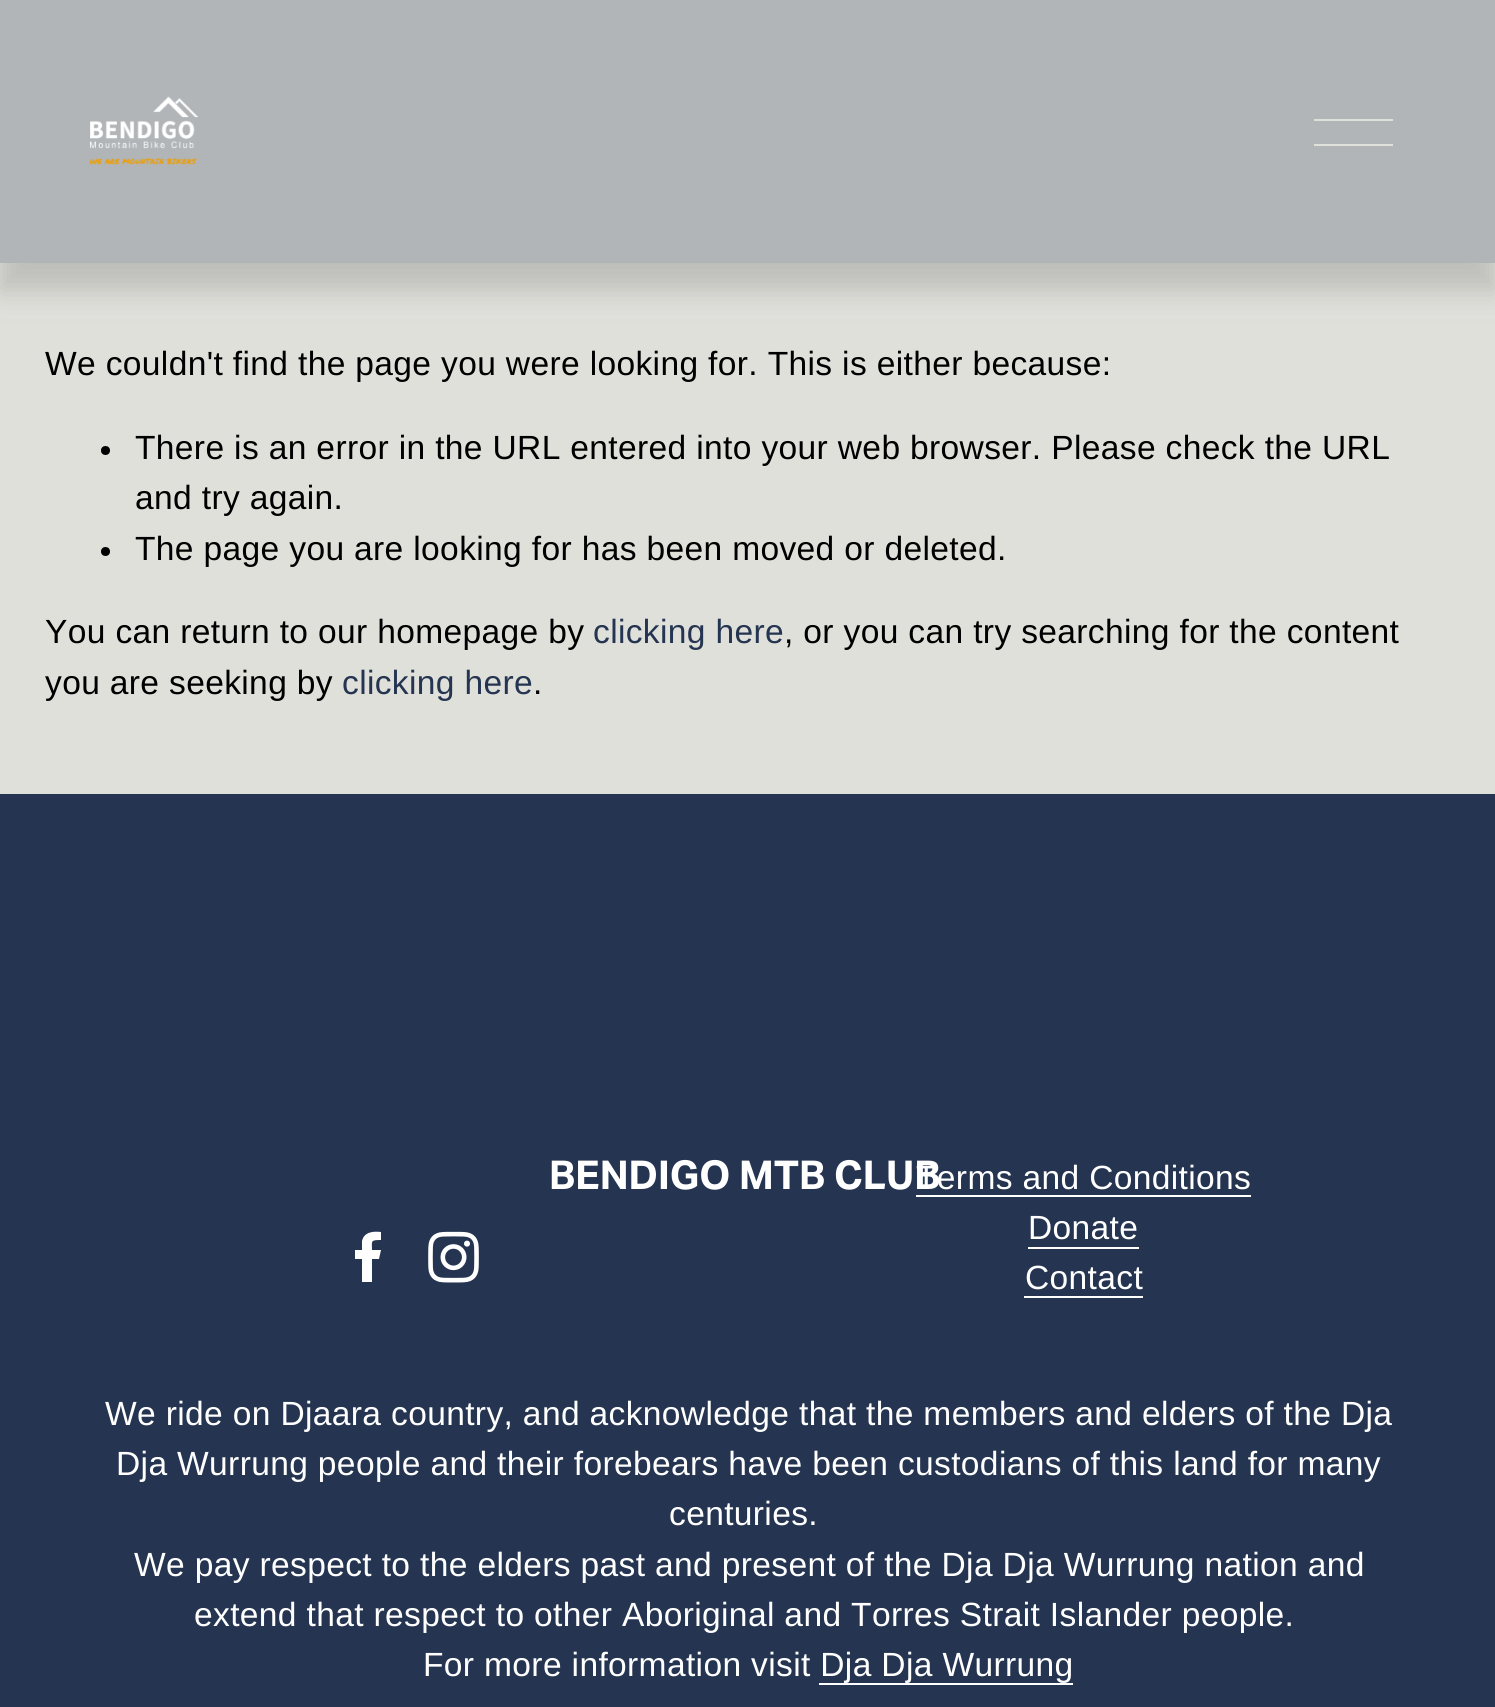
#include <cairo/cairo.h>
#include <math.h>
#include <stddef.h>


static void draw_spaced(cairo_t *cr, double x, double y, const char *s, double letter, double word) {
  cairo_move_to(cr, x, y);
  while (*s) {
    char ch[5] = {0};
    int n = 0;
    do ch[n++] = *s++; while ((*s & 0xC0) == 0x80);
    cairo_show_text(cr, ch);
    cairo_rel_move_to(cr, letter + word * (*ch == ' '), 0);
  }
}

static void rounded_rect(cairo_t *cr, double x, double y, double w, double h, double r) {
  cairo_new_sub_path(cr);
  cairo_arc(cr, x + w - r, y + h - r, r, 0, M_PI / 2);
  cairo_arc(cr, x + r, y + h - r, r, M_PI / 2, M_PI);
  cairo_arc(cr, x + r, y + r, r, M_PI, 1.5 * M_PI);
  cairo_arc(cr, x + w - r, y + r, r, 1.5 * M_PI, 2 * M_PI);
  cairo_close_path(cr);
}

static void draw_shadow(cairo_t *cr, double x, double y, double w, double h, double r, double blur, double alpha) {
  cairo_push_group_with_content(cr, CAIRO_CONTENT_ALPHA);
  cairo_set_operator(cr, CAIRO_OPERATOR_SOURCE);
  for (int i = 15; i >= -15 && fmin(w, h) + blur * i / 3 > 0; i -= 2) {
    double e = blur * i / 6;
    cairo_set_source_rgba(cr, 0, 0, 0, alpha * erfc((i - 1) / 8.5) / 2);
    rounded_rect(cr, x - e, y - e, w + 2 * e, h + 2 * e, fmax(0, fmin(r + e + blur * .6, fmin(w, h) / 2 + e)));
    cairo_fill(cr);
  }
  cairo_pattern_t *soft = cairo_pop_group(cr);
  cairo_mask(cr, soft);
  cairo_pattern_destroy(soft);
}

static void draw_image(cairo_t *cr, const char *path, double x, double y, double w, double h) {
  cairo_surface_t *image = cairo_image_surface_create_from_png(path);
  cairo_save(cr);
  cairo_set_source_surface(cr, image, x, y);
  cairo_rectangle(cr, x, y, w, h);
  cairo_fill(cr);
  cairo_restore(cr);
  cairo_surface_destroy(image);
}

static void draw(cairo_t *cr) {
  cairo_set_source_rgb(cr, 224 / 255.0, 224 / 255.0, 219 / 255.0);
  cairo_paint(cr);
  cairo_set_source_rgb(cr, 190 / 255.0, 190 / 255.0, 186 / 255.0);
  draw_shadow(cr, 0, 27, 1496, 263, 0, 13.5, 1);
  cairo_set_source_rgb(cr, 177 / 255.0, 181 / 255.0, 184 / 255.0);
  cairo_rectangle(cr, 0, 0, 1495, 263);
  cairo_fill(cr);
  draw_image(cr, "images/1.png", 90, 96, 109, 69);
  cairo_set_source_rgb(cr, 224 / 255.0, 224 / 255.0, 219 / 255.0);
  cairo_rectangle(cr, 1314, 119, 79, 2);
  cairo_fill(cr);
  cairo_rectangle(cr, 1314, 144, 79, 2);
  cairo_fill(cr);
  cairo_set_source_rgb(cr, 0, 0, 0);
  cairo_arc(cr, 105.5, 450.5, 4.5, 0, 2 * M_PI);
  cairo_fill(cr);
  cairo_arc(cr, 105.5, 551.5, 4.5, 0, 2 * M_PI);
  cairo_fill(cr);
  cairo_set_source_rgb(cr, 37 / 255.0, 53 / 255.0, 81 / 255.0);
  cairo_rectangle(cr, 0, 794, 1495, 913);
  cairo_fill(cr);
  cairo_set_source_rgb(cr, 1, 1, 1);
  cairo_new_path(cr);
  cairo_move_to(cr, 372, 1282);
  cairo_line_to(cr, 372, 1259);
  cairo_line_to(cr, 379, 1259);
  cairo_line_to(cr, 381, 1250);
  cairo_line_to(cr, 372, 1250);
  cairo_curve_to(cr, 372, 1241, 370, 1240, 381, 1240);
  cairo_line_to(cr, 381, 1232);
  cairo_curve_to(cr, 373, 1231, 364, 1232, 362, 1241);
  cairo_line_to(cr, 362, 1250);
  cairo_line_to(cr, 355, 1250);
  cairo_line_to(cr, 355, 1259);
  cairo_line_to(cr, 362, 1259);
  cairo_line_to(cr, 362, 1282);
  cairo_close_path(cr);
  cairo_fill(cr);
  draw_image(cr, "images/2.png", 428, 1231, 51, 52);
  cairo_rectangle(cr, 916, 1195, 335, 2);
  cairo_fill(cr);
  cairo_rectangle(cr, 1028, 1247, 111, 2);
  cairo_fill(cr);
  cairo_rectangle(cr, 1024, 1296, 119, 2);
  cairo_fill(cr);
  cairo_rectangle(cr, 819, 1683, 254, 2);
  cairo_fill(cr);
  cairo_select_font_face(cr, "Liberation Sans", CAIRO_FONT_SLANT_NORMAL, CAIRO_FONT_WEIGHT_NORMAL);
  cairo_set_font_size(cr, 33.55);
  cairo_set_source_rgb(cr, 0, 0, 0);
  draw_spaced(cr, 45, 375, "We couldn't find the page you were looking for. This is either because:", 0.35, 0);
  draw_spaced(cr, 135, 459, "There is an error in the URL entered into your web browser. Please check the URL", 0.35, 0);
  draw_spaced(cr, 135, 509, "and try again.", 0.35, 0);
  draw_spaced(cr, 135, 560, "The page you are looking for has been moved or deleted.", 0.35, 0);
  draw_spaced(cr, 45, 643, "You can return to our homepage by", 0.35, 0);
  cairo_set_source_rgb(cr, 37 / 255.0, 53 / 255.0, 81 / 255.0);
  draw_spaced(cr, 593, 643, "clicking here", 0.35, 0);
  cairo_set_source_rgb(cr, 0, 0, 0);
  draw_spaced(cr, 784, 643, ", or you can try searching for the content", 0.35, 0);
  draw_spaced(cr, 45, 694, "you are seeking by", 0.35, 0);
  cairo_set_source_rgb(cr, 37 / 255.0, 53 / 255.0, 81 / 255.0);
  draw_spaced(cr, 342, 694, "clicking here", 0.35, 0);
  cairo_set_source_rgb(cr, 0, 0, 0);
  draw_spaced(cr, 533, 694, ".", 0.35, 0);
  cairo_select_font_face(cr, "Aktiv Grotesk", CAIRO_FONT_SLANT_NORMAL, CAIRO_FONT_WEIGHT_BOLD);
  cairo_set_font_size(cr, 39.75);
  cairo_set_source_rgb(cr, 1, 1, 1);
  cairo_move_to(cr, 549, 1189);
  cairo_show_text(cr, "BENDIGO MTB CLUB");
  cairo_select_font_face(cr, "Liberation Sans", CAIRO_FONT_SLANT_NORMAL, CAIRO_FONT_WEIGHT_NORMAL);
  cairo_set_font_size(cr, 33.55);
  draw_spaced(cr, 916, 1189, "Terms and Conditions", 0.35, 0);
  draw_spaced(cr, 1028, 1239, "Donate", 0.35, 0);
  draw_spaced(cr, 1025, 1289, "Contact", 0.35, 0);
  draw_spaced(cr, 105, 1425, "We ride on Djaara country, and acknowledge that the members and elders of the Dja", 0.35, 0);
  draw_spaced(cr, 116, 1475, "Dja Wurrung people and their forebears have been custodians of this land for many", 0.35, 0);
  draw_spaced(cr, 669, 1525, "centuries.", 0.35, 0);
  draw_spaced(cr, 134, 1576, "We pay respect to the elders past and present of the Dja Dja Wurrung nation and", 0.35, 0);
  draw_spaced(cr, 194, 1626, "extend that respect to other Aboriginal and Torres Strait Islander people.", 0.35, 0);
  draw_spaced(cr, 423, 1676, "For more information visit Dja Dja Wurrung", 0.35, 0);
}

int main(void) {
  cairo_surface_t *surface = cairo_image_surface_create(CAIRO_FORMAT_RGB24, 1495, 1707);
  cairo_t *cr = cairo_create(surface);
  cairo_font_options_t *options = cairo_font_options_create();
  cairo_font_options_set_hint_metrics(options, CAIRO_HINT_METRICS_OFF);
  cairo_font_options_set_hint_style(options, CAIRO_HINT_STYLE_NONE);
  cairo_set_font_options(cr, options);
  cairo_set_miter_limit(cr, 4);
  draw(cr);
  cairo_surface_write_to_png(surface, "out.png");
  cairo_font_options_destroy(options);
  cairo_destroy(cr);
  cairo_surface_destroy(surface);
  return 0;
}
